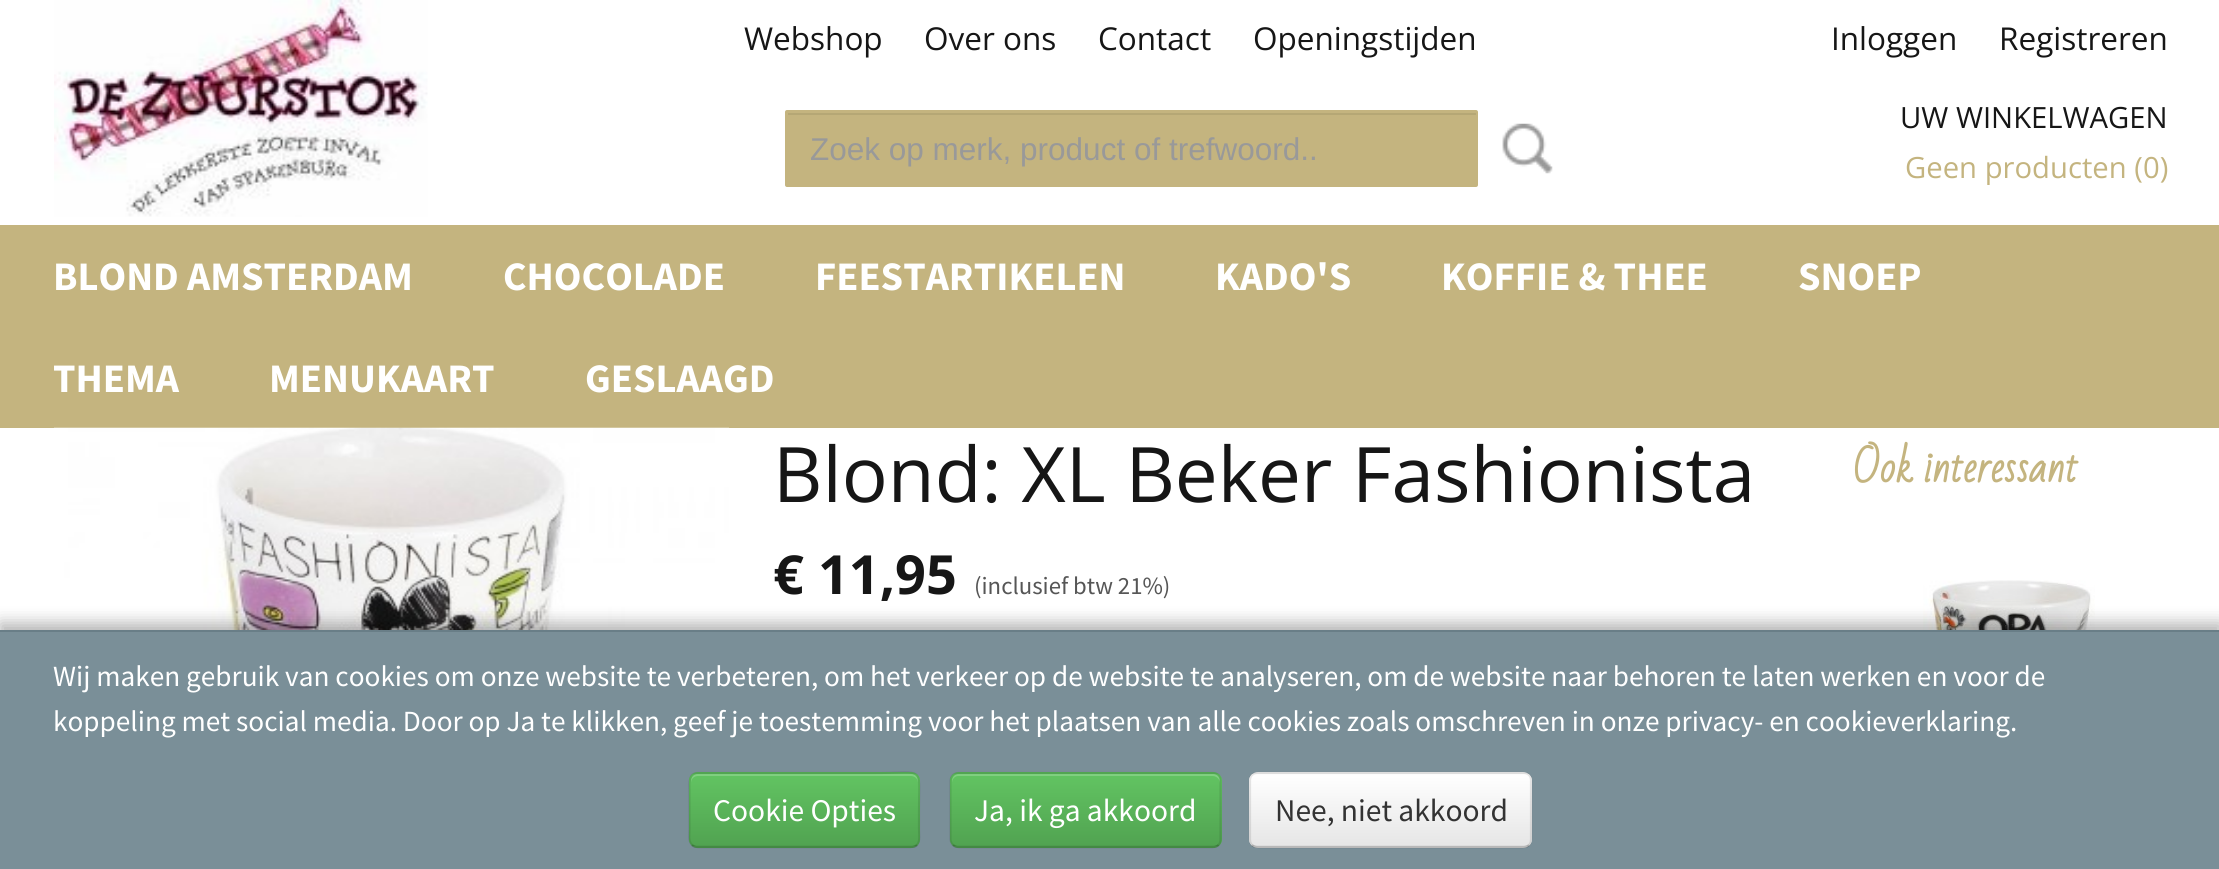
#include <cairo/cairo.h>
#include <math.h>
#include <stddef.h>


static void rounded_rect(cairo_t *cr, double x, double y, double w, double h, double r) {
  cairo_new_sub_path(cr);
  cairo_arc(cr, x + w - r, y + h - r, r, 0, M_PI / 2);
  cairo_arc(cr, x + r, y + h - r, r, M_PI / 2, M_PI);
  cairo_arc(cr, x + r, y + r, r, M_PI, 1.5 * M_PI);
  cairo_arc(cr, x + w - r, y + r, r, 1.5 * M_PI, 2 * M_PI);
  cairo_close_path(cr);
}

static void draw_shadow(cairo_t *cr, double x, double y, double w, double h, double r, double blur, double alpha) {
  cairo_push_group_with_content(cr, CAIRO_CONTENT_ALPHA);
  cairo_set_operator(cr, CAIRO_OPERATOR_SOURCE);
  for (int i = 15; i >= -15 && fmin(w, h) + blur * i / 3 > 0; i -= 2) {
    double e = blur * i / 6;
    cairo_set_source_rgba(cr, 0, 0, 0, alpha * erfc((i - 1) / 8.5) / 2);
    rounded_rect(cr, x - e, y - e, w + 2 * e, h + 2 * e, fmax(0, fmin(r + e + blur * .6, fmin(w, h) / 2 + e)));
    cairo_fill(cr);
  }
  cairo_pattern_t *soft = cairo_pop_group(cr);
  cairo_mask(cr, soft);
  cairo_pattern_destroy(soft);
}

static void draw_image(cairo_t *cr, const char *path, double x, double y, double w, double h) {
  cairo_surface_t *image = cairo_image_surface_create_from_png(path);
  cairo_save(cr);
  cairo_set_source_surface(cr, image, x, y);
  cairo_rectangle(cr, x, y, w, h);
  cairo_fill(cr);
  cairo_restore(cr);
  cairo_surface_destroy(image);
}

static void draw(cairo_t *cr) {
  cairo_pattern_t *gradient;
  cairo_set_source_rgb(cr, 1, 1, 1);
  cairo_paint(cr);
  draw_image(cr, "images/1.png", 54, 0, 374, 217);
  cairo_set_source_rgb(cr, 196 / 255.0, 180 / 255.0, 127 / 255.0);
  rounded_rect(cr, 785, 110, 693, 77, 2);
  cairo_fill(cr);
  cairo_set_source_rgb(cr, 181 / 255.0, 167 / 255.0, 117 / 255.0);
  cairo_rectangle(cr, 788, 113, 688, 2);
  cairo_fill(cr);
  draw_image(cr, "images/2.png", 1502, 123, 51, 51);
  cairo_set_source_rgb(cr, 196 / 255.0, 180 / 255.0, 127 / 255.0);
  cairo_rectangle(cr, 0, 225, 2219, 203);
  cairo_fill(cr);
  draw_image(cr, "images/3.png", 54, 427, 675, 203);
  draw_image(cr, "images/4.png", 1923, 580, 172, 50);
  cairo_set_source_rgb(cr, 0, 0, 0);
  draw_shadow(cr, 0, 623, 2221, 241, 0, 8, 0.3);
  cairo_set_source_rgb(cr, 122 / 255.0, 143 / 255.0, 152 / 255.0);
  cairo_rectangle(cr, 0, 632, 2219, 237);
  cairo_fill(cr);
  cairo_set_source_rgb(cr, 105 / 255.0, 126 / 255.0, 135 / 255.0);
  cairo_rectangle(cr, 0, 630, 2219, 2);
  cairo_fill(cr);
  cairo_set_source_rgb(cr, 91 / 255.0, 183 / 255.0, 91 / 255.0);
  rounded_rect(cr, 689, 772, 231, 76, 9);
  cairo_fill(cr);
  cairo_save(cr);
  rounded_rect(cr, 689, 772, 231, 76, 9);
  cairo_clip(cr);
  gradient = cairo_pattern_create_linear(804, 774, 804, 846);
  cairo_pattern_add_color_stop_rgba(gradient, 0, 98 / 255.0, 196 / 255.0, 98 / 255.0, 1);
  cairo_pattern_add_color_stop_rgba(gradient, 1, 81 / 255.0, 163 / 255.0, 81 / 255.0, 1);
  cairo_set_source(cr, gradient);
  cairo_pattern_destroy(gradient);
  cairo_rectangle(cr, 689, 774, 231, 72);
  cairo_fill(cr);
  cairo_restore(cr);
  cairo_set_source_rgba(cr, 1, 1, 1, 0.2);
  cairo_new_path(cr);
  cairo_move_to(cr, 698, 776);
  cairo_line_to(cr, 911, 776);
  cairo_curve_to(cr, 915, 776, 918, 779, 918, 783);
  cairo_line_to(cr, 918, 781);
  cairo_curve_to(cr, 918, 777, 915, 774, 911, 774);
  cairo_line_to(cr, 698, 774);
  cairo_curve_to(cr, 694, 774, 691, 777, 691, 781);
  cairo_line_to(cr, 691, 783);
  cairo_curve_to(cr, 691, 779, 694, 776, 698, 776);
  cairo_close_path(cr);
  cairo_fill(cr);
  cairo_new_path(cr);
  cairo_move_to(cr, 917, 845);
  cairo_curve_to(cr, 915.5, 846.5, 913.5, 847, 911, 847);
  cairo_line_to(cr, 697.5, 847);
  cairo_curve_to(cr, 695.5, 847, 693.5, 846.5, 692, 845);
  cairo_set_source_rgba(cr, 0, 0, 0, 0.25);
  cairo_set_line_width(cr, 2.2);
  cairo_stroke(cr);
  cairo_new_path(cr);
  cairo_move_to(cr, 692, 845);
  cairo_curve_to(cr, 688, 841, 689.5, 834, 689.5, 829.5);
  cairo_line_to(cr, 689.5, 790.5);
  cairo_curve_to(cr, 689.5, 784.5, 688, 773, 697.5, 773);
  cairo_line_to(cr, 875.5, 773);
  cairo_curve_to(cr, 925.5, 773, 919, 764.5, 919, 810);
  cairo_line_to(cr, 919, 829.5);
  cairo_curve_to(cr, 919, 834, 920.5, 841, 917, 845);
  cairo_set_source_rgba(cr, 0, 0, 0, 0.1);
  cairo_stroke(cr);
  cairo_set_source_rgb(cr, 91 / 255.0, 183 / 255.0, 91 / 255.0);
  rounded_rect(cr, 950, 772, 272, 76, 9);
  cairo_fill(cr);
  cairo_save(cr);
  rounded_rect(cr, 950, 772, 272, 76, 9);
  cairo_clip(cr);
  gradient = cairo_pattern_create_linear(1086, 774, 1086, 846);
  cairo_pattern_add_color_stop_rgba(gradient, 0, 98 / 255.0, 196 / 255.0, 98 / 255.0, 1);
  cairo_pattern_add_color_stop_rgba(gradient, 1, 81 / 255.0, 163 / 255.0, 81 / 255.0, 1);
  cairo_set_source(cr, gradient);
  cairo_pattern_destroy(gradient);
  cairo_rectangle(cr, 950, 774, 272, 72);
  cairo_fill(cr);
  cairo_restore(cr);
  cairo_set_source_rgba(cr, 1, 1, 1, 0.2);
  cairo_new_path(cr);
  cairo_move_to(cr, 958, 776);
  cairo_line_to(cr, 1213, 776);
  cairo_curve_to(cr, 1216, 776, 1220, 779, 1220, 783);
  cairo_line_to(cr, 1220, 781);
  cairo_curve_to(cr, 1220, 777, 1217, 774, 1213, 774);
  cairo_line_to(cr, 959, 774);
  cairo_curve_to(cr, 955, 774, 952, 777, 952, 781);
  cairo_line_to(cr, 952, 783);
  cairo_curve_to(cr, 952, 779, 955, 776, 958, 776);
  cairo_close_path(cr);
  cairo_fill(cr);
  cairo_new_path(cr);
  cairo_move_to(cr, 1218.5, 845);
  cairo_curve_to(cr, 1217, 846.5, 1215, 847, 1213, 847);
  cairo_line_to(cr, 958.5, 847);
  cairo_curve_to(cr, 956.5, 847, 954.5, 846.5, 953, 845);
  cairo_set_source_rgba(cr, 0, 0, 0, 0.25);
  cairo_stroke(cr);
  cairo_new_path(cr);
  cairo_move_to(cr, 953, 845);
  cairo_curve_to(cr, 951.5, 843.5, 950.5, 841.5, 950.5, 839);
  cairo_line_to(cr, 950.5, 781);
  cairo_curve_to(cr, 950.5, 778.5, 951.5, 776.5, 953, 775);
  cairo_curve_to(cr, 954.5, 773.5, 956.5, 773, 958.5, 773);
  cairo_line_to(cr, 1213, 773);
  cairo_curve_to(cr, 1215, 773, 1217, 773.5, 1218.5, 775);
  cairo_curve_to(cr, 1220, 776.5, 1220.5, 778.5, 1220.5, 781);
  cairo_line_to(cr, 1220.5, 839);
  cairo_curve_to(cr, 1220.5, 841.5, 1220, 843.5, 1218.5, 845);
  cairo_set_source_rgba(cr, 0, 0, 0, 0.1);
  cairo_stroke(cr);
  cairo_set_source_rgb(cr, 245 / 255.0, 245 / 255.0, 245 / 255.0);
  rounded_rect(cr, 1249, 772, 283, 76, 9);
  cairo_fill(cr);
  cairo_save(cr);
  rounded_rect(cr, 1249, 772, 283, 76, 9);
  cairo_clip(cr);
  gradient = cairo_pattern_create_linear(1391, 774, 1391, 846);
  cairo_pattern_add_color_stop_rgba(gradient, 0, 1, 1, 1, 1);
  cairo_pattern_add_color_stop_rgba(gradient, 1, 230 / 255.0, 230 / 255.0, 230 / 255.0, 1);
  cairo_set_source(cr, gradient);
  cairo_pattern_destroy(gradient);
  cairo_rectangle(cr, 1249, 774, 283, 72);
  cairo_fill(cr);
  cairo_restore(cr);
  cairo_new_path(cr);
  cairo_move_to(cr, 1529, 845);
  cairo_curve_to(cr, 1527.5, 846.5, 1525.5, 847, 1523, 847);
  cairo_line_to(cr, 1258, 847);
  cairo_curve_to(cr, 1255.5, 847, 1253.5, 846.5, 1252, 845);
  cairo_set_source_rgba(cr, 0, 0, 0, 0.25);
  cairo_stroke(cr);
  cairo_new_path(cr);
  cairo_move_to(cr, 1252, 845);
  cairo_curve_to(cr, 1250.5, 843.5, 1250, 841.5, 1250, 839);
  cairo_line_to(cr, 1250, 781);
  cairo_curve_to(cr, 1250, 778.5, 1250.5, 776.5, 1252, 775);
  cairo_curve_to(cr, 1253.5, 773.5, 1255.5, 773, 1258, 773);
  cairo_line_to(cr, 1523, 773);
  cairo_curve_to(cr, 1525.5, 773, 1527.5, 773.5, 1529, 775);
  cairo_curve_to(cr, 1530.5, 776.5, 1531, 778.5, 1531, 781);
  cairo_line_to(cr, 1531, 839);
  cairo_curve_to(cr, 1531, 841.5, 1530.5, 843.5, 1529, 845);
  cairo_set_source_rgba(cr, 0, 0, 0, 0.1);
  cairo_stroke(cr);
  cairo_select_font_face(cr, "Open Sans", CAIRO_FONT_SLANT_NORMAL, CAIRO_FONT_WEIGHT_NORMAL);
  cairo_set_font_size(cr, 31.5);
  cairo_set_source_rgb(cr, 22 / 255.0, 22 / 255.0, 22 / 255.0);
  cairo_move_to(cr, 744, 50);
  cairo_show_text(cr, "Webshop");
  cairo_move_to(cr, 924, 50);
  cairo_show_text(cr, "Over ons");
  cairo_move_to(cr, 1098, 50);
  cairo_show_text(cr, "Contact");
  cairo_move_to(cr, 1253, 50);
  cairo_show_text(cr, "Openingstijden");
  cairo_move_to(cr, 1831, 50);
  cairo_show_text(cr, "Inloggen");
  cairo_move_to(cr, 1999, 50);
  cairo_show_text(cr, "Registreren");
  cairo_set_font_size(cr, 29.25);
  cairo_move_to(cr, 1900, 128);
  cairo_show_text(cr, "UW WINKELWAGEN");
  cairo_set_source_rgb(cr, 196 / 255.0, 180 / 255.0, 127 / 255.0);
  cairo_move_to(cr, 1905, 178);
  cairo_show_text(cr, "Geen producten (0)");
  cairo_select_font_face(cr, "Liberation Sans", CAIRO_FONT_SLANT_NORMAL, CAIRO_FONT_WEIGHT_NORMAL);
  cairo_set_font_size(cr, 31.5);
  cairo_set_source_rgb(cr, 153 / 255.0, 153 / 255.0, 153 / 255.0);
  cairo_move_to(cr, 810, 160);
  cairo_show_text(cr, "Zoek op merk, product of trefwoord..");
  cairo_select_font_face(cr, "Source Sans Pro", CAIRO_FONT_SLANT_NORMAL, CAIRO_FONT_WEIGHT_BOLD);
  cairo_set_font_size(cr, 40.5);
  cairo_set_source_rgb(cr, 1, 1, 1);
  cairo_move_to(cr, 53, 290);
  cairo_show_text(cr, "BLOND AMSTERDAM");
  cairo_move_to(cr, 503, 290);
  cairo_show_text(cr, "CHOCOLADE");
  cairo_move_to(cr, 815, 290);
  cairo_show_text(cr, "FEESTARTIKELEN");
  cairo_move_to(cr, 1215, 290);
  cairo_show_text(cr, "KADO'S");
  cairo_move_to(cr, 1441, 290);
  cairo_show_text(cr, "KOFFIE & THEE");
  cairo_move_to(cr, 1798, 290);
  cairo_show_text(cr, "SNOEP");
  cairo_move_to(cr, 53, 392);
  cairo_show_text(cr, "THEMA");
  cairo_move_to(cr, 269, 392);
  cairo_show_text(cr, "MENUKAART");
  cairo_move_to(cr, 585, 392);
  cairo_show_text(cr, "GESLAAGD");
  cairo_select_font_face(cr, "Open Sans", CAIRO_FONT_SLANT_NORMAL, CAIRO_FONT_WEIGHT_NORMAL);
  cairo_set_font_size(cr, 76.5);
  cairo_set_source_rgb(cr, 22 / 255.0, 22 / 255.0, 22 / 255.0);
  cairo_move_to(cr, 773, 502);
  cairo_show_text(cr, "Blond: XL Beker Fashionista");
  cairo_select_font_face(cr, "Open Sans", CAIRO_FONT_SLANT_NORMAL, CAIRO_FONT_WEIGHT_BOLD);
  cairo_set_font_size(cr, 54);
  cairo_move_to(cr, 773, 594);
  cairo_show_text(cr, "€ 11,95");
  cairo_select_font_face(cr, "Source Sans Pro", CAIRO_FONT_SLANT_NORMAL, CAIRO_FONT_WEIGHT_NORMAL);
  cairo_set_font_size(cr, 24.75);
  cairo_set_source_rgb(cr, 86 / 255.0, 86 / 255.0, 86 / 255.0);
  cairo_move_to(cr, 974, 594);
  cairo_show_text(cr, "(inclusief btw 21%)");
  cairo_select_font_face(cr, "Bad Script", CAIRO_FONT_SLANT_NORMAL, CAIRO_FONT_WEIGHT_BOLD);
  cairo_set_font_size(cr, 40.5);
  cairo_set_source_rgb(cr, 196 / 255.0, 180 / 255.0, 127 / 255.0);
  cairo_move_to(cr, 1853, 482);
  cairo_show_text(cr, "Ook interessant");
  cairo_select_font_face(cr, "Source Sans Pro", CAIRO_FONT_SLANT_NORMAL, CAIRO_FONT_WEIGHT_NORMAL);
  cairo_set_font_size(cr, 29.25);
  cairo_set_source_rgb(cr, 1, 1, 1);
  cairo_move_to(cr, 53, 686);
  cairo_show_text(cr, "Wij maken gebruik van cookies om onze website te verbeteren, om het verkeer op de website te analyseren, om de website naar behoren te laten werken en voor de");
  cairo_move_to(cr, 53, 731);
  cairo_show_text(cr, "koppeling met social media. Door op Ja te klikken, geef je toestemming voor het plaatsen van alle cookies zoals omschreven in onze privacy- en cookieverklaring.");
  cairo_set_font_size(cr, 31.5);
  cairo_move_to(cr, 713, 821);
  cairo_show_text(cr, "Cookie Opties");
  cairo_move_to(cr, 974, 821);
  cairo_show_text(cr, "Ja, ik ga akkoord");
  cairo_set_source_rgb(cr, 51 / 255.0, 51 / 255.0, 51 / 255.0);
  cairo_move_to(cr, 1275, 821);
  cairo_show_text(cr, "Nee, niet akkoord");
}

int main(void) {
  cairo_surface_t *surface = cairo_image_surface_create(CAIRO_FORMAT_RGB24, 2219, 869);
  cairo_t *cr = cairo_create(surface);
  cairo_font_options_t *options = cairo_font_options_create();
  cairo_font_options_set_hint_metrics(options, CAIRO_HINT_METRICS_OFF);
  cairo_font_options_set_hint_style(options, CAIRO_HINT_STYLE_NONE);
  cairo_set_font_options(cr, options);
  cairo_set_miter_limit(cr, 4);
  draw(cr);
  cairo_surface_write_to_png(surface, "out.png");
  cairo_font_options_destroy(options);
  cairo_destroy(cr);
  cairo_surface_destroy(surface);
  return 0;
}
